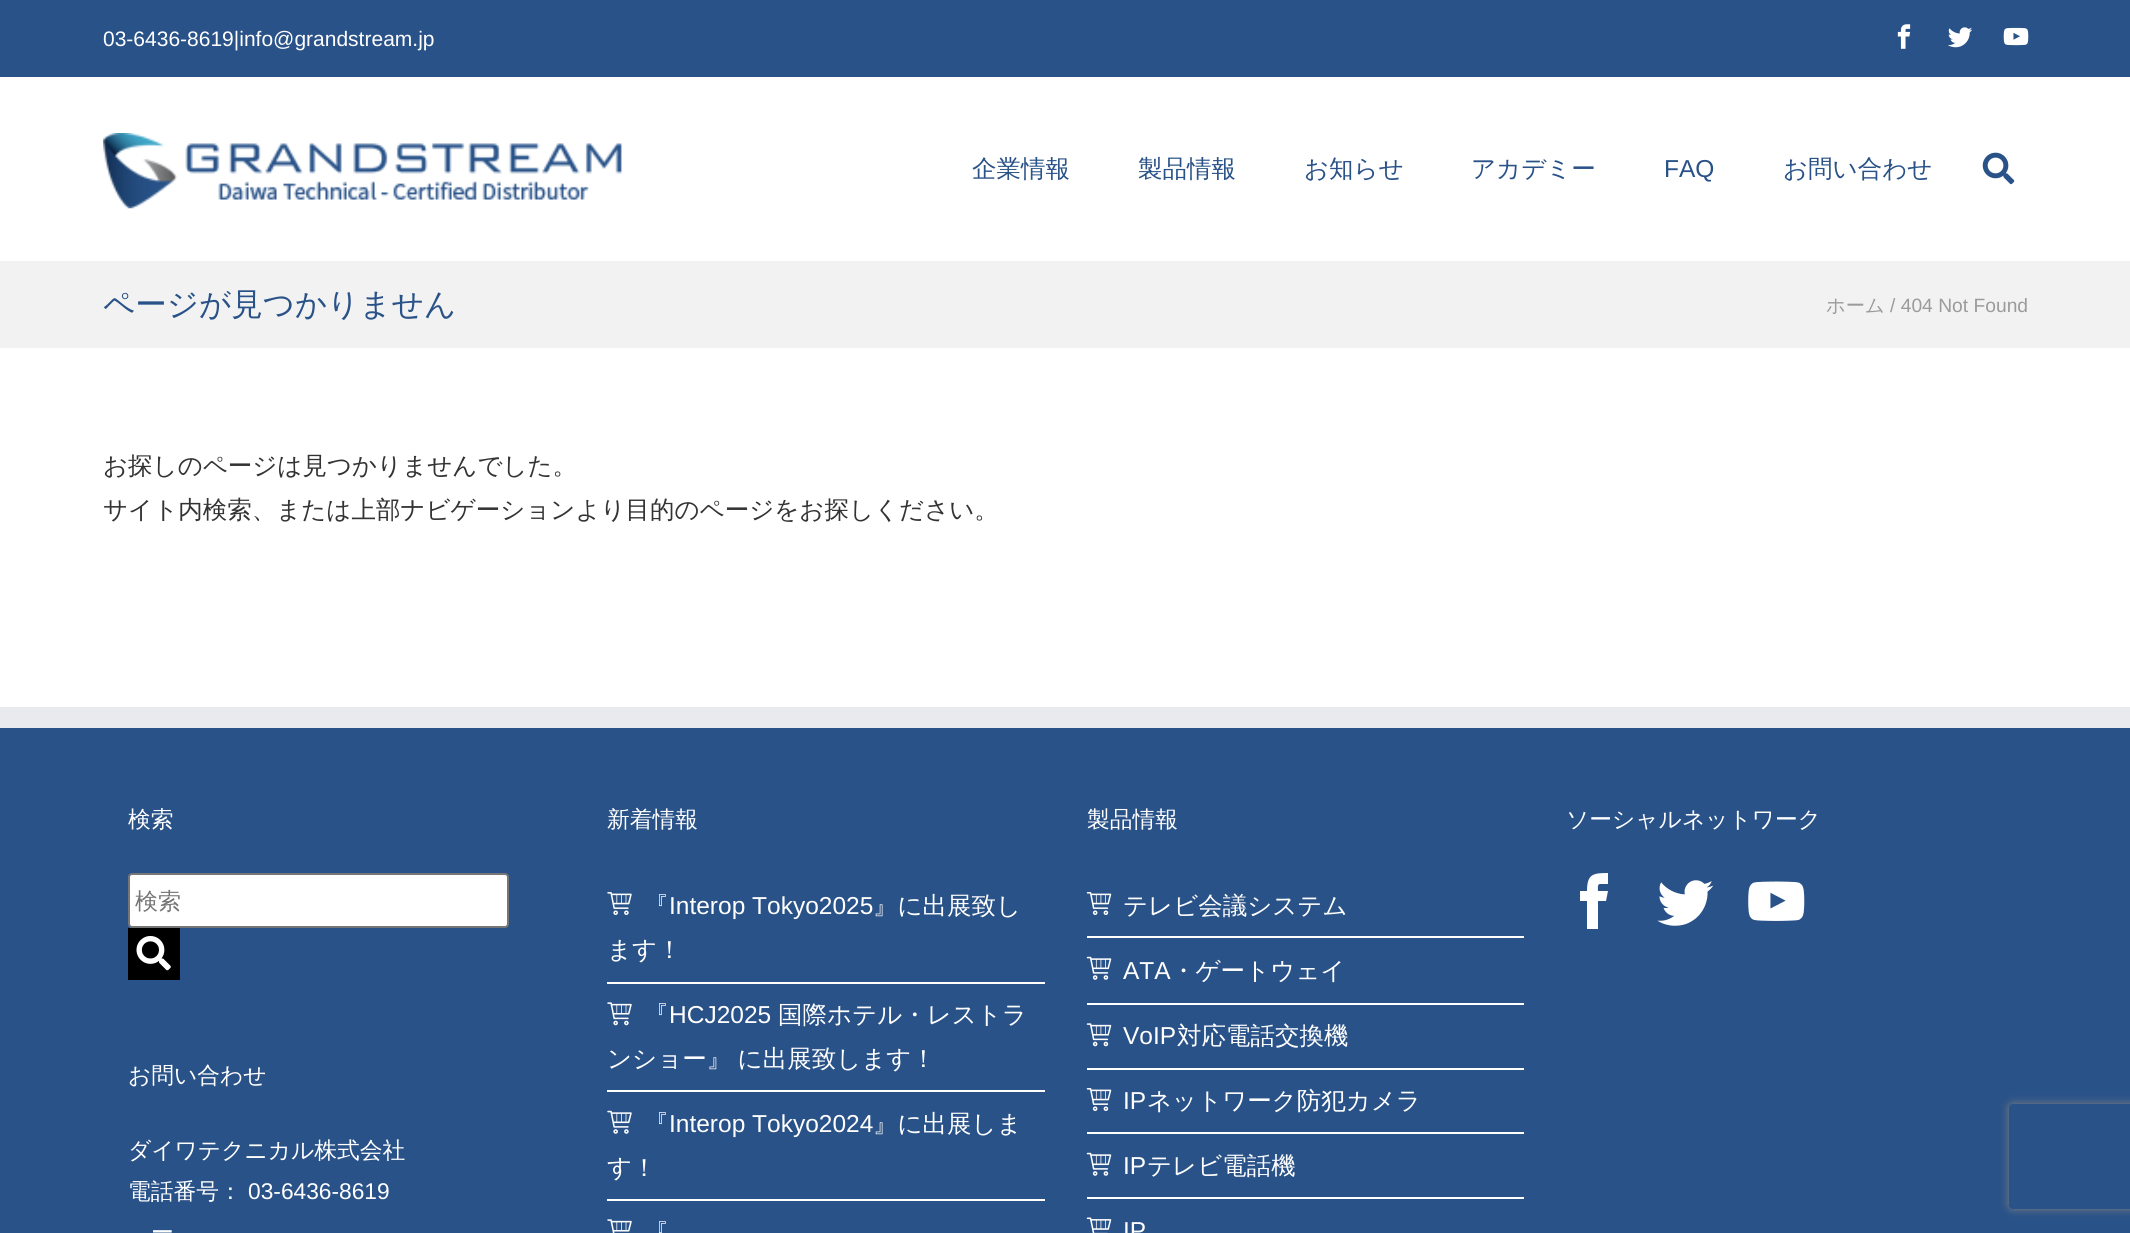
#include <cairo/cairo.h>
#include <math.h>
#include <stddef.h>


static void draw_spaced(cairo_t *cr, double x, double y, const char *s, double letter, double word) {
  cairo_move_to(cr, x, y);
  while (*s) {
    char ch[5] = {0};
    int n = 0;
    do ch[n++] = *s++; while ((*s & 0xC0) == 0x80);
    cairo_show_text(cr, ch);
    cairo_rel_move_to(cr, letter + word * (*ch == ' '), 0);
  }
}

static void rounded_rect(cairo_t *cr, double x, double y, double w, double h, double r) {
  cairo_new_sub_path(cr);
  cairo_arc(cr, x + w - r, y + h - r, r, 0, M_PI / 2);
  cairo_arc(cr, x + r, y + h - r, r, M_PI / 2, M_PI);
  cairo_arc(cr, x + r, y + r, r, M_PI, 1.5 * M_PI);
  cairo_arc(cr, x + w - r, y + r, r, 1.5 * M_PI, 2 * M_PI);
  cairo_close_path(cr);
}

static void draw_shadow(cairo_t *cr, double x, double y, double w, double h, double r, double blur, double alpha) {
  cairo_push_group_with_content(cr, CAIRO_CONTENT_ALPHA);
  cairo_set_operator(cr, CAIRO_OPERATOR_SOURCE);
  for (int i = 15; i >= -15 && fmin(w, h) + blur * i / 3 > 0; i -= 2) {
    double e = blur * i / 6;
    cairo_set_source_rgba(cr, 0, 0, 0, alpha * erfc((i - 1) / 8.5) / 2);
    rounded_rect(cr, x - e, y - e, w + 2 * e, h + 2 * e, fmax(0, fmin(r + e + blur * .6, fmin(w, h) / 2 + e)));
    cairo_fill(cr);
  }
  cairo_pattern_t *soft = cairo_pop_group(cr);
  cairo_mask(cr, soft);
  cairo_pattern_destroy(soft);
}

static void draw_image(cairo_t *cr, const char *path, double x, double y, double w, double h) {
  cairo_surface_t *image = cairo_image_surface_create_from_png(path);
  cairo_save(cr);
  cairo_set_source_surface(cr, image, x, y);
  cairo_rectangle(cr, x, y, w, h);
  cairo_fill(cr);
  cairo_restore(cr);
  cairo_surface_destroy(image);
}

static void draw(cairo_t *cr) {
  cairo_set_source_rgb(cr, 1, 1, 1);
  cairo_paint(cr);
  cairo_set_source_rgb(cr, 41 / 255.0, 82 / 255.0, 136 / 255.0);
  cairo_rectangle(cr, 0, 0, 2130, 77);
  cairo_fill(cr);
  draw_image(cr, "images/1.png", 1897, 24, 14, 25);
  draw_image(cr, "images/2.png", 1948, 27, 25, 21);
  draw_image(cr, "images/3.png", 2003, 27, 26, 19);
  draw_image(cr, "images/4.png", 103, 133, 519, 76);
  draw_image(cr, "images/5.png", 1982, 152, 33, 33);
  cairo_set_source_rgb(cr, 242 / 255.0, 242 / 255.0, 242 / 255.0);
  cairo_rectangle(cr, 0, 261, 2130, 87);
  cairo_fill(cr);
  cairo_set_source_rgb(cr, 233 / 255.0, 234 / 255.0, 238 / 255.0);
  cairo_rectangle(cr, 0, 707, 2130, 21);
  cairo_fill(cr);
  cairo_set_source_rgb(cr, 41 / 255.0, 82 / 255.0, 136 / 255.0);
  cairo_rectangle(cr, 0, 728, 2130, 505);
  cairo_fill(cr);
  cairo_set_source_rgb(cr, 1, 1, 1);
  rounded_rect(cr, 129, 874, 379, 53, 3);
  cairo_fill_preserve(cr);
  cairo_set_source_rgb(cr, 118 / 255.0, 118 / 255.0, 118 / 255.0);
  cairo_stroke(cr);
  cairo_set_source_rgb(cr, 0, 0, 0);
  cairo_rectangle(cr, 128, 928, 52, 52);
  cairo_fill(cr);
  draw_image(cr, "images/6.png", 136, 936, 35, 35);
  cairo_set_source_rgb(cr, 1, 1, 1);
  cairo_rectangle(cr, 607, 982, 438, 2);
  cairo_fill(cr);
  draw_image(cr, "images/7.png", 607, 892, 25, 23);
  cairo_rectangle(cr, 607, 1090, 438, 2);
  cairo_fill(cr);
  draw_image(cr, "images/8.png", 607, 1002, 25, 24);
  cairo_rectangle(cr, 607, 1199, 438, 2);
  cairo_fill(cr);
  draw_image(cr, "images/9.png", 607, 1110, 25, 24);
  draw_image(cr, "images/10.png", 607, 1219, 25, 14);
  cairo_rectangle(cr, 1087, 936, 437, 2);
  cairo_fill(cr);
  draw_image(cr, "images/11.png", 1086, 892, 26, 23);
  cairo_rectangle(cr, 1087, 1003, 437, 2);
  cairo_fill(cr);
  draw_image(cr, "images/12.png", 1086, 956, 26, 24);
  cairo_rectangle(cr, 1087, 1068, 437, 2);
  cairo_fill(cr);
  draw_image(cr, "images/13.png", 1086, 1023, 26, 24);
  cairo_rectangle(cr, 1087, 1132, 437, 2);
  cairo_fill(cr);
  draw_image(cr, "images/11.png", 1086, 1088, 26, 23);
  cairo_rectangle(cr, 1087, 1197, 437, 2);
  cairo_fill(cr);
  draw_image(cr, "images/12.png", 1086, 1152, 26, 24);
  draw_image(cr, "images/14.png", 1086, 1217, 26, 16);
  cairo_new_path(cr);
  cairo_move_to(cr, 1600, 884);
  cairo_line_to(cr, 1608, 884);
  cairo_line_to(cr, 1608, 873);
  cairo_curve_to(cr, 1593, 873, 1587, 874, 1587, 891);
  cairo_line_to(cr, 1580, 891);
  cairo_line_to(cr, 1580, 901);
  cairo_line_to(cr, 1587, 901);
  cairo_line_to(cr, 1587, 929);
  cairo_line_to(cr, 1598, 929);
  cairo_line_to(cr, 1598, 901);
  cairo_line_to(cr, 1606, 901);
  cairo_line_to(cr, 1608, 891);
  cairo_line_to(cr, 1598, 891);
  cairo_curve_to(cr, 1598, 889, 1597, 884, 1600, 884);
  cairo_close_path(cr);
  cairo_fill(cr);
  draw_image(cr, "images/15.png", 1657, 880, 57, 46);
  draw_image(cr, "images/16.png", 1748, 881, 57, 40);
  cairo_save(cr);
  cairo_set_fill_rule(cr, CAIRO_FILL_RULE_EVEN_ODD);
  cairo_new_path(cr);
  cairo_move_to(cr, 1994, 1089);
  cairo_line_to(cr, 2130, 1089);
  cairo_line_to(cr, 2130, 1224);
  cairo_line_to(cr, 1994, 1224);
  cairo_close_path(cr);
  cairo_move_to(cr, 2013, 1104);
  cairo_line_to(cr, 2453, 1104);
  cairo_curve_to(cr, 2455, 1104, 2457, 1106, 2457, 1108);
  cairo_line_to(cr, 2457, 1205);
  cairo_curve_to(cr, 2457, 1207, 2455, 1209, 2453, 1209);
  cairo_line_to(cr, 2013, 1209);
  cairo_curve_to(cr, 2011, 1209, 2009, 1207, 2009, 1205);
  cairo_line_to(cr, 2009, 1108);
  cairo_curve_to(cr, 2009, 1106, 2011, 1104, 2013, 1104);
  cairo_close_path(cr);
  cairo_clip(cr);
  cairo_set_source_rgb(cr, 128 / 255.0, 128 / 255.0, 128 / 255.0);
  draw_shadow(cr, 2009, 1104, 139, 105, 4, 4.5, 1);
  cairo_restore(cr);
  cairo_select_font_face(cr, "Liberation Sans", CAIRO_FONT_SLANT_NORMAL, CAIRO_FONT_WEIGHT_NORMAL);
  cairo_set_font_size(cr, 21);
  cairo_move_to(cr, 103, 46);
  cairo_show_text(cr, "03-6436-8619|info@grandstream.jp");
  cairo_select_font_face(cr, "WenQuanYi Zen Hei Medium", CAIRO_FONT_SLANT_NORMAL, CAIRO_FONT_WEIGHT_NORMAL);
  cairo_set_font_size(cr, 24.5);
  cairo_set_source_rgb(cr, 41 / 255.0, 82 / 255.0, 136 / 255.0);
  cairo_move_to(cr, 972, 177);
  cairo_show_text(cr, "企業情報");
  cairo_move_to(cr, 1138, 177);
  cairo_show_text(cr, "製品情報");
  cairo_move_to(cr, 1304, 177);
  cairo_show_text(cr, "お知らせ");
  cairo_move_to(cr, 1471, 177);
  cairo_show_text(cr, "アカデミー");
  cairo_select_font_face(cr, "Liberation Sans", CAIRO_FONT_SLANT_NORMAL, CAIRO_FONT_WEIGHT_NORMAL);
  cairo_move_to(cr, 1664, 177);
  cairo_show_text(cr, "FAQ");
  cairo_select_font_face(cr, "WenQuanYi Zen Hei Medium", CAIRO_FONT_SLANT_NORMAL, CAIRO_FONT_WEIGHT_NORMAL);
  cairo_move_to(cr, 1783, 177);
  cairo_show_text(cr, "お問い合わせ");
  cairo_set_font_size(cr, 31.5);
  cairo_move_to(cr, 103, 315);
  cairo_show_text(cr, "ページが見つかりません");
  cairo_set_font_size(cr, 19.25);
  cairo_set_source_rgb(cr, 155 / 255.0, 155 / 255.0, 155 / 255.0);
  cairo_move_to(cr, 1826, 312);
  cairo_show_text(cr, "ホーム");
  cairo_select_font_face(cr, "Liberation Sans", CAIRO_FONT_SLANT_NORMAL, CAIRO_FONT_WEIGHT_NORMAL);
  cairo_move_to(cr, 1890, 312);
  cairo_show_text(cr, "/ 404 Not Found");
  cairo_select_font_face(cr, "WenQuanYi Zen Hei Medium", CAIRO_FONT_SLANT_NORMAL, CAIRO_FONT_WEIGHT_NORMAL);
  cairo_set_font_size(cr, 24.5);
  cairo_set_source_rgb(cr, 51 / 255.0, 51 / 255.0, 51 / 255.0);
  cairo_move_to(cr, 103, 474);
  cairo_show_text(cr, "お探しのページは見つかりませんでした。");
  cairo_move_to(cr, 103, 518);
  cairo_show_text(cr, "サイト内検索、または上部ナビゲーションより目的のページをお探しください。");
  cairo_set_font_size(cr, 22.75);
  cairo_set_source_rgb(cr, 1, 1, 1);
  cairo_move_to(cr, 128, 827);
  cairo_show_text(cr, "検索");
  cairo_set_font_size(cr, 23);
  cairo_set_source_rgb(cr, 117 / 255.0, 117 / 255.0, 117 / 255.0);
  cairo_move_to(cr, 135, 909);
  cairo_show_text(cr, "検索");
  cairo_set_font_size(cr, 22.75);
  cairo_set_source_rgb(cr, 1, 1, 1);
  cairo_move_to(cr, 128, 1083);
  cairo_show_text(cr, "お問い合わせ");
  cairo_move_to(cr, 128, 1158);
  cairo_show_text(cr, "ダイワテクニカル株式会社");
  cairo_move_to(cr, 128, 1199);
  cairo_show_text(cr, "電話番号：");
  cairo_select_font_face(cr, "Liberation Sans", CAIRO_FONT_SLANT_NORMAL, CAIRO_FONT_WEIGHT_NORMAL);
  cairo_move_to(cr, 248, 1199);
  cairo_show_text(cr, "03-6436-8619");
  cairo_select_font_face(cr, "WenQuanYi Zen Hei Medium", CAIRO_FONT_SLANT_NORMAL, CAIRO_FONT_WEIGHT_NORMAL);
  cairo_move_to(cr, 151, 1240);
  cairo_show_text(cr, "ー");
  cairo_move_to(cr, 607, 827);
  cairo_show_text(cr, "新着情報");
  cairo_set_font_size(cr, 24.5);
  cairo_move_to(cr, 644, 914);
  cairo_show_text(cr, "『");
  cairo_select_font_face(cr, "Liberation Sans", CAIRO_FONT_SLANT_NORMAL, CAIRO_FONT_WEIGHT_NORMAL);
  cairo_move_to(cr, 669, 914);
  cairo_show_text(cr, "Interop Tokyo2025");
  cairo_select_font_face(cr, "WenQuanYi Zen Hei Medium", CAIRO_FONT_SLANT_NORMAL, CAIRO_FONT_WEIGHT_NORMAL);
  cairo_move_to(cr, 873, 914);
  cairo_show_text(cr, "』に出展致し");
  cairo_move_to(cr, 607, 958);
  cairo_show_text(cr, "ます！");
  cairo_move_to(cr, 644, 1023);
  cairo_show_text(cr, "『");
  cairo_select_font_face(cr, "Liberation Sans", CAIRO_FONT_SLANT_NORMAL, CAIRO_FONT_WEIGHT_NORMAL);
  cairo_move_to(cr, 669, 1023);
  cairo_show_text(cr, "HCJ2025");
  cairo_select_font_face(cr, "WenQuanYi Zen Hei Medium", CAIRO_FONT_SLANT_NORMAL, CAIRO_FONT_WEIGHT_NORMAL);
  cairo_move_to(cr, 778, 1023);
  cairo_show_text(cr, "国際ホテル・レストラ");
  draw_spaced(cr, 607, 1067, "ンショー』 に出展致します！", 0, -1);
  cairo_move_to(cr, 644, 1132);
  cairo_show_text(cr, "『");
  cairo_select_font_face(cr, "Liberation Sans", CAIRO_FONT_SLANT_NORMAL, CAIRO_FONT_WEIGHT_NORMAL);
  cairo_move_to(cr, 669, 1132);
  cairo_show_text(cr, "Interop Tokyo2024");
  cairo_select_font_face(cr, "WenQuanYi Zen Hei Medium", CAIRO_FONT_SLANT_NORMAL, CAIRO_FONT_WEIGHT_NORMAL);
  cairo_move_to(cr, 873, 1132);
  cairo_show_text(cr, "』に出展しま");
  cairo_move_to(cr, 607, 1176);
  cairo_show_text(cr, "す！");
  cairo_move_to(cr, 644, 1241);
  cairo_show_text(cr, "『");
  cairo_set_font_size(cr, 22.75);
  cairo_move_to(cr, 1087, 827);
  cairo_show_text(cr, "製品情報");
  cairo_set_font_size(cr, 24.5);
  cairo_move_to(cr, 1123, 914);
  cairo_show_text(cr, "テレビ会議システム");
  cairo_select_font_face(cr, "Liberation Sans", CAIRO_FONT_SLANT_NORMAL, CAIRO_FONT_WEIGHT_NORMAL);
  cairo_move_to(cr, 1123, 979);
  cairo_show_text(cr, "ATA");
  cairo_select_font_face(cr, "WenQuanYi Zen Hei Medium", CAIRO_FONT_SLANT_NORMAL, CAIRO_FONT_WEIGHT_NORMAL);
  cairo_move_to(cr, 1171, 979);
  cairo_show_text(cr, "・ゲートウェイ");
  cairo_select_font_face(cr, "Liberation Sans", CAIRO_FONT_SLANT_NORMAL, CAIRO_FONT_WEIGHT_NORMAL);
  cairo_move_to(cr, 1123, 1044);
  cairo_show_text(cr, "VoIP");
  cairo_select_font_face(cr, "WenQuanYi Zen Hei Medium", CAIRO_FONT_SLANT_NORMAL, CAIRO_FONT_WEIGHT_NORMAL);
  cairo_move_to(cr, 1177, 1044);
  cairo_show_text(cr, "対応電話交換機");
  cairo_select_font_face(cr, "Liberation Sans", CAIRO_FONT_SLANT_NORMAL, CAIRO_FONT_WEIGHT_NORMAL);
  cairo_move_to(cr, 1123, 1109);
  cairo_show_text(cr, "IP");
  cairo_select_font_face(cr, "WenQuanYi Zen Hei Medium", CAIRO_FONT_SLANT_NORMAL, CAIRO_FONT_WEIGHT_NORMAL);
  cairo_move_to(cr, 1147, 1109);
  cairo_show_text(cr, "ネットワーク防犯カメラ");
  cairo_select_font_face(cr, "Liberation Sans", CAIRO_FONT_SLANT_NORMAL, CAIRO_FONT_WEIGHT_NORMAL);
  cairo_move_to(cr, 1123, 1174);
  cairo_show_text(cr, "IP");
  cairo_select_font_face(cr, "WenQuanYi Zen Hei Medium", CAIRO_FONT_SLANT_NORMAL, CAIRO_FONT_WEIGHT_NORMAL);
  cairo_move_to(cr, 1147, 1174);
  cairo_show_text(cr, "テレビ電話機");
  cairo_select_font_face(cr, "Liberation Sans", CAIRO_FONT_SLANT_NORMAL, CAIRO_FONT_WEIGHT_NORMAL);
  cairo_move_to(cr, 1123, 1239);
  cairo_show_text(cr, "IP");
  cairo_select_font_face(cr, "WenQuanYi Zen Hei Medium", CAIRO_FONT_SLANT_NORMAL, CAIRO_FONT_WEIGHT_NORMAL);
  cairo_set_font_size(cr, 22.75);
  cairo_move_to(cr, 1566, 827);
  cairo_show_text(cr, "ソーシャルネットワーク");
}

int main(void) {
  cairo_surface_t *surface = cairo_image_surface_create(CAIRO_FORMAT_RGB24, 2130, 1233);
  cairo_t *cr = cairo_create(surface);
  cairo_font_options_t *options = cairo_font_options_create();
  cairo_font_options_set_hint_metrics(options, CAIRO_HINT_METRICS_OFF);
  cairo_font_options_set_hint_style(options, CAIRO_HINT_STYLE_NONE);
  cairo_set_font_options(cr, options);
  cairo_set_miter_limit(cr, 4);
  draw(cr);
  cairo_surface_write_to_png(surface, "out.png");
  cairo_font_options_destroy(options);
  cairo_destroy(cr);
  cairo_surface_destroy(surface);
  return 0;
}
